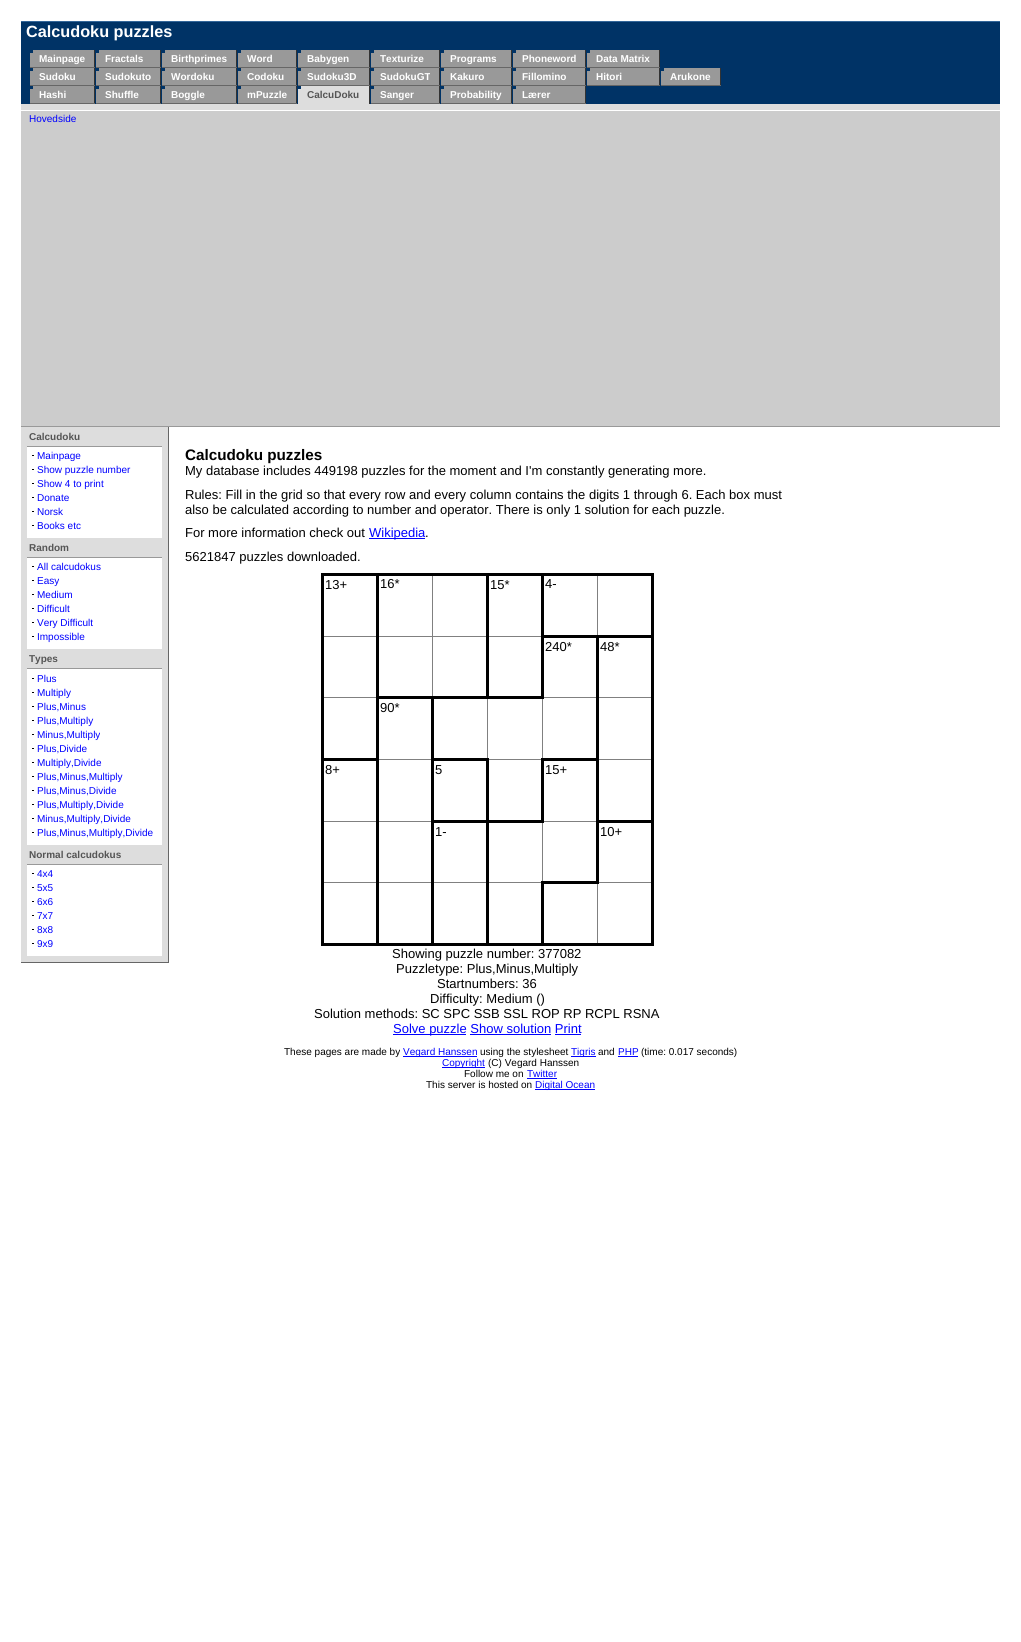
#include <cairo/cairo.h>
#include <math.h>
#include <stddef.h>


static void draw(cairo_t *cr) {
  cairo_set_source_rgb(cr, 1, 1, 1);
  cairo_paint(cr);
  cairo_set_source_rgb(cr, 0, 51 / 255.0, 102 / 255.0);
  cairo_rectangle(cr, 21, 22, 979, 82);
  cairo_fill(cr);
  cairo_set_source_rgb(cr, 51 / 255.0, 102 / 255.0, 153 / 255.0);
  cairo_rectangle(cr, 21, 21, 979, 1);
  cairo_fill(cr);
  cairo_set_source_rgb(cr, 221 / 255.0, 221 / 255.0, 221 / 255.0);
  cairo_rectangle(cr, 21, 104, 979, 6);
  cairo_fill(cr);
  cairo_set_source_rgb(cr, 153 / 255.0, 153 / 255.0, 153 / 255.0);
  cairo_rectangle(cr, 30, 50, 64, 17);
  cairo_fill(cr);
  cairo_set_source_rgb(cr, 0, 51 / 255.0, 102 / 255.0);
  cairo_rectangle(cr, 30, 50, 3, 3);
  cairo_fill(cr);
  cairo_set_source_rgb(cr, 51 / 255.0, 51 / 255.0, 51 / 255.0);
  cairo_rectangle(cr, 94, 50, 1, 54);
  cairo_fill(cr);
  cairo_set_source_rgb(cr, 102 / 255.0, 102 / 255.0, 102 / 255.0);
  cairo_rectangle(cr, 29, 67, 66, 1);
  cairo_fill(cr);
  cairo_set_source_rgb(cr, 0, 51 / 255.0, 102 / 255.0);
  cairo_rectangle(cr, 29, 67, 1, 1);
  cairo_fill(cr);
  cairo_set_source_rgb(cr, 153 / 255.0, 153 / 255.0, 153 / 255.0);
  cairo_rectangle(cr, 96, 50, 64, 17);
  cairo_fill(cr);
  cairo_set_source_rgb(cr, 0, 51 / 255.0, 102 / 255.0);
  cairo_rectangle(cr, 96, 50, 3, 3);
  cairo_fill(cr);
  cairo_set_source_rgb(cr, 51 / 255.0, 51 / 255.0, 51 / 255.0);
  cairo_rectangle(cr, 160, 50, 1, 54);
  cairo_fill(cr);
  cairo_set_source_rgb(cr, 102 / 255.0, 102 / 255.0, 102 / 255.0);
  cairo_rectangle(cr, 95, 67, 66, 1);
  cairo_fill(cr);
  cairo_set_source_rgb(cr, 0, 51 / 255.0, 102 / 255.0);
  cairo_rectangle(cr, 95, 67, 1, 1);
  cairo_fill(cr);
  cairo_set_source_rgb(cr, 153 / 255.0, 153 / 255.0, 153 / 255.0);
  cairo_rectangle(cr, 162, 50, 74, 17);
  cairo_fill(cr);
  cairo_set_source_rgb(cr, 0, 51 / 255.0, 102 / 255.0);
  cairo_rectangle(cr, 162, 50, 3, 3);
  cairo_fill(cr);
  cairo_set_source_rgb(cr, 51 / 255.0, 51 / 255.0, 51 / 255.0);
  cairo_rectangle(cr, 236, 50, 1, 54);
  cairo_fill(cr);
  cairo_set_source_rgb(cr, 102 / 255.0, 102 / 255.0, 102 / 255.0);
  cairo_rectangle(cr, 161, 67, 76, 1);
  cairo_fill(cr);
  cairo_set_source_rgb(cr, 0, 51 / 255.0, 102 / 255.0);
  cairo_rectangle(cr, 161, 67, 1, 1);
  cairo_fill(cr);
  cairo_set_source_rgb(cr, 153 / 255.0, 153 / 255.0, 153 / 255.0);
  cairo_rectangle(cr, 238, 50, 58, 17);
  cairo_fill(cr);
  cairo_set_source_rgb(cr, 0, 51 / 255.0, 102 / 255.0);
  cairo_rectangle(cr, 238, 50, 3, 3);
  cairo_fill(cr);
  cairo_set_source_rgb(cr, 51 / 255.0, 51 / 255.0, 51 / 255.0);
  cairo_rectangle(cr, 296, 50, 1, 54);
  cairo_fill(cr);
  cairo_set_source_rgb(cr, 102 / 255.0, 102 / 255.0, 102 / 255.0);
  cairo_rectangle(cr, 237, 67, 60, 1);
  cairo_fill(cr);
  cairo_set_source_rgb(cr, 0, 51 / 255.0, 102 / 255.0);
  cairo_rectangle(cr, 237, 67, 1, 1);
  cairo_fill(cr);
  cairo_set_source_rgb(cr, 153 / 255.0, 153 / 255.0, 153 / 255.0);
  cairo_rectangle(cr, 298, 50, 71, 17);
  cairo_fill(cr);
  cairo_set_source_rgb(cr, 0, 51 / 255.0, 102 / 255.0);
  cairo_rectangle(cr, 298, 50, 3, 3);
  cairo_fill(cr);
  cairo_set_source_rgb(cr, 51 / 255.0, 51 / 255.0, 51 / 255.0);
  cairo_rectangle(cr, 369, 50, 1, 54);
  cairo_fill(cr);
  cairo_set_source_rgb(cr, 102 / 255.0, 102 / 255.0, 102 / 255.0);
  cairo_rectangle(cr, 297, 67, 73, 1);
  cairo_fill(cr);
  cairo_set_source_rgb(cr, 0, 51 / 255.0, 102 / 255.0);
  cairo_rectangle(cr, 297, 67, 1, 1);
  cairo_fill(cr);
  cairo_set_source_rgb(cr, 153 / 255.0, 153 / 255.0, 153 / 255.0);
  cairo_rectangle(cr, 371, 50, 68, 17);
  cairo_fill(cr);
  cairo_set_source_rgb(cr, 0, 51 / 255.0, 102 / 255.0);
  cairo_rectangle(cr, 371, 50, 3, 3);
  cairo_fill(cr);
  cairo_set_source_rgb(cr, 51 / 255.0, 51 / 255.0, 51 / 255.0);
  cairo_rectangle(cr, 439, 50, 1, 54);
  cairo_fill(cr);
  cairo_set_source_rgb(cr, 102 / 255.0, 102 / 255.0, 102 / 255.0);
  cairo_rectangle(cr, 370, 67, 70, 1);
  cairo_fill(cr);
  cairo_set_source_rgb(cr, 0, 51 / 255.0, 102 / 255.0);
  cairo_rectangle(cr, 370, 67, 1, 1);
  cairo_fill(cr);
  cairo_set_source_rgb(cr, 153 / 255.0, 153 / 255.0, 153 / 255.0);
  cairo_rectangle(cr, 441, 50, 70, 17);
  cairo_fill(cr);
  cairo_set_source_rgb(cr, 0, 51 / 255.0, 102 / 255.0);
  cairo_rectangle(cr, 441, 50, 3, 3);
  cairo_fill(cr);
  cairo_set_source_rgb(cr, 51 / 255.0, 51 / 255.0, 51 / 255.0);
  cairo_rectangle(cr, 511, 50, 1, 54);
  cairo_fill(cr);
  cairo_set_source_rgb(cr, 102 / 255.0, 102 / 255.0, 102 / 255.0);
  cairo_rectangle(cr, 440, 67, 72, 1);
  cairo_fill(cr);
  cairo_set_source_rgb(cr, 0, 51 / 255.0, 102 / 255.0);
  cairo_rectangle(cr, 440, 67, 1, 1);
  cairo_fill(cr);
  cairo_set_source_rgb(cr, 153 / 255.0, 153 / 255.0, 153 / 255.0);
  cairo_rectangle(cr, 513, 50, 72, 17);
  cairo_fill(cr);
  cairo_set_source_rgb(cr, 0, 51 / 255.0, 102 / 255.0);
  cairo_rectangle(cr, 513, 50, 3, 3);
  cairo_fill(cr);
  cairo_set_source_rgb(cr, 51 / 255.0, 51 / 255.0, 51 / 255.0);
  cairo_rectangle(cr, 585, 50, 1, 54);
  cairo_fill(cr);
  cairo_set_source_rgb(cr, 102 / 255.0, 102 / 255.0, 102 / 255.0);
  cairo_rectangle(cr, 512, 67, 74, 1);
  cairo_fill(cr);
  cairo_set_source_rgb(cr, 0, 51 / 255.0, 102 / 255.0);
  cairo_rectangle(cr, 512, 67, 1, 1);
  cairo_fill(cr);
  cairo_set_source_rgb(cr, 153 / 255.0, 153 / 255.0, 153 / 255.0);
  cairo_rectangle(cr, 587, 50, 72, 17);
  cairo_fill(cr);
  cairo_set_source_rgb(cr, 0, 51 / 255.0, 102 / 255.0);
  cairo_rectangle(cr, 587, 50, 3, 3);
  cairo_fill(cr);
  cairo_set_source_rgb(cr, 51 / 255.0, 51 / 255.0, 51 / 255.0);
  cairo_rectangle(cr, 659, 50, 1, 36);
  cairo_fill(cr);
  cairo_set_source_rgb(cr, 102 / 255.0, 102 / 255.0, 102 / 255.0);
  cairo_rectangle(cr, 586, 67, 74, 1);
  cairo_fill(cr);
  cairo_set_source_rgb(cr, 0, 51 / 255.0, 102 / 255.0);
  cairo_rectangle(cr, 586, 67, 1, 1);
  cairo_fill(cr);
  cairo_set_source_rgb(cr, 153 / 255.0, 153 / 255.0, 153 / 255.0);
  cairo_rectangle(cr, 30, 68, 64, 17);
  cairo_fill(cr);
  cairo_set_source_rgb(cr, 0, 51 / 255.0, 102 / 255.0);
  cairo_rectangle(cr, 30, 68, 3, 3);
  cairo_fill(cr);
  cairo_set_source_rgb(cr, 102 / 255.0, 102 / 255.0, 102 / 255.0);
  cairo_rectangle(cr, 29, 85, 631, 1);
  cairo_fill(cr);
  cairo_set_source_rgb(cr, 0, 51 / 255.0, 102 / 255.0);
  cairo_rectangle(cr, 29, 85, 1, 1);
  cairo_fill(cr);
  cairo_set_source_rgb(cr, 153 / 255.0, 153 / 255.0, 153 / 255.0);
  cairo_rectangle(cr, 96, 68, 64, 17);
  cairo_fill(cr);
  cairo_set_source_rgb(cr, 0, 51 / 255.0, 102 / 255.0);
  cairo_rectangle(cr, 96, 68, 3, 3);
  cairo_fill(cr);
  cairo_rectangle(cr, 95, 85, 1, 1);
  cairo_fill(cr);
  cairo_set_source_rgb(cr, 153 / 255.0, 153 / 255.0, 153 / 255.0);
  cairo_rectangle(cr, 162, 68, 74, 17);
  cairo_fill(cr);
  cairo_set_source_rgb(cr, 0, 51 / 255.0, 102 / 255.0);
  cairo_rectangle(cr, 162, 68, 3, 3);
  cairo_fill(cr);
  cairo_rectangle(cr, 161, 85, 1, 1);
  cairo_fill(cr);
  cairo_set_source_rgb(cr, 153 / 255.0, 153 / 255.0, 153 / 255.0);
  cairo_rectangle(cr, 238, 68, 58, 17);
  cairo_fill(cr);
  cairo_set_source_rgb(cr, 0, 51 / 255.0, 102 / 255.0);
  cairo_rectangle(cr, 238, 68, 3, 3);
  cairo_fill(cr);
  cairo_rectangle(cr, 237, 85, 1, 1);
  cairo_fill(cr);
  cairo_set_source_rgb(cr, 153 / 255.0, 153 / 255.0, 153 / 255.0);
  cairo_rectangle(cr, 298, 68, 71, 17);
  cairo_fill(cr);
  cairo_set_source_rgb(cr, 0, 51 / 255.0, 102 / 255.0);
  cairo_rectangle(cr, 298, 68, 3, 3);
  cairo_fill(cr);
  cairo_rectangle(cr, 297, 85, 1, 1);
  cairo_fill(cr);
  cairo_set_source_rgb(cr, 153 / 255.0, 153 / 255.0, 153 / 255.0);
  cairo_rectangle(cr, 371, 68, 68, 17);
  cairo_fill(cr);
  cairo_set_source_rgb(cr, 0, 51 / 255.0, 102 / 255.0);
  cairo_rectangle(cr, 371, 68, 3, 3);
  cairo_fill(cr);
  cairo_rectangle(cr, 370, 85, 1, 1);
  cairo_fill(cr);
  cairo_set_source_rgb(cr, 153 / 255.0, 153 / 255.0, 153 / 255.0);
  cairo_rectangle(cr, 441, 68, 70, 17);
  cairo_fill(cr);
  cairo_set_source_rgb(cr, 0, 51 / 255.0, 102 / 255.0);
  cairo_rectangle(cr, 441, 68, 3, 3);
  cairo_fill(cr);
  cairo_rectangle(cr, 440, 85, 1, 1);
  cairo_fill(cr);
  cairo_set_source_rgb(cr, 153 / 255.0, 153 / 255.0, 153 / 255.0);
  cairo_rectangle(cr, 513, 68, 72, 17);
  cairo_fill(cr);
  cairo_set_source_rgb(cr, 0, 51 / 255.0, 102 / 255.0);
  cairo_rectangle(cr, 513, 68, 3, 3);
  cairo_fill(cr);
  cairo_rectangle(cr, 512, 85, 1, 1);
  cairo_fill(cr);
  cairo_set_source_rgb(cr, 153 / 255.0, 153 / 255.0, 153 / 255.0);
  cairo_rectangle(cr, 587, 68, 72, 17);
  cairo_fill(cr);
  cairo_set_source_rgb(cr, 0, 51 / 255.0, 102 / 255.0);
  cairo_rectangle(cr, 587, 68, 3, 3);
  cairo_fill(cr);
  cairo_rectangle(cr, 586, 85, 1, 1);
  cairo_fill(cr);
  cairo_set_source_rgb(cr, 153 / 255.0, 153 / 255.0, 153 / 255.0);
  cairo_rectangle(cr, 661, 68, 59, 17);
  cairo_fill(cr);
  cairo_set_source_rgb(cr, 0, 51 / 255.0, 102 / 255.0);
  cairo_rectangle(cr, 661, 68, 3, 3);
  cairo_fill(cr);
  cairo_set_source_rgb(cr, 51 / 255.0, 51 / 255.0, 51 / 255.0);
  cairo_rectangle(cr, 720, 68, 1, 18);
  cairo_fill(cr);
  cairo_set_source_rgb(cr, 102 / 255.0, 102 / 255.0, 102 / 255.0);
  cairo_rectangle(cr, 660, 85, 61, 1);
  cairo_fill(cr);
  cairo_set_source_rgb(cr, 0, 51 / 255.0, 102 / 255.0);
  cairo_rectangle(cr, 660, 85, 1, 1);
  cairo_fill(cr);
  cairo_set_source_rgb(cr, 153 / 255.0, 153 / 255.0, 153 / 255.0);
  cairo_rectangle(cr, 30, 86, 64, 17);
  cairo_fill(cr);
  cairo_set_source_rgb(cr, 0, 51 / 255.0, 102 / 255.0);
  cairo_rectangle(cr, 30, 86, 3, 3);
  cairo_fill(cr);
  cairo_set_source_rgb(cr, 102 / 255.0, 102 / 255.0, 102 / 255.0);
  cairo_rectangle(cr, 29, 103, 268, 1);
  cairo_fill(cr);
  cairo_set_source_rgb(cr, 0, 51 / 255.0, 102 / 255.0);
  cairo_rectangle(cr, 29, 103, 1, 1);
  cairo_fill(cr);
  cairo_set_source_rgb(cr, 153 / 255.0, 153 / 255.0, 153 / 255.0);
  cairo_rectangle(cr, 96, 86, 64, 17);
  cairo_fill(cr);
  cairo_set_source_rgb(cr, 0, 51 / 255.0, 102 / 255.0);
  cairo_rectangle(cr, 96, 86, 3, 3);
  cairo_fill(cr);
  cairo_rectangle(cr, 95, 103, 1, 1);
  cairo_fill(cr);
  cairo_set_source_rgb(cr, 153 / 255.0, 153 / 255.0, 153 / 255.0);
  cairo_rectangle(cr, 162, 86, 74, 17);
  cairo_fill(cr);
  cairo_set_source_rgb(cr, 0, 51 / 255.0, 102 / 255.0);
  cairo_rectangle(cr, 162, 86, 3, 3);
  cairo_fill(cr);
  cairo_rectangle(cr, 161, 103, 1, 1);
  cairo_fill(cr);
  cairo_set_source_rgb(cr, 153 / 255.0, 153 / 255.0, 153 / 255.0);
  cairo_rectangle(cr, 238, 86, 58, 17);
  cairo_fill(cr);
  cairo_set_source_rgb(cr, 0, 51 / 255.0, 102 / 255.0);
  cairo_rectangle(cr, 238, 86, 3, 3);
  cairo_fill(cr);
  cairo_rectangle(cr, 237, 103, 1, 1);
  cairo_fill(cr);
  cairo_set_source_rgb(cr, 221 / 255.0, 221 / 255.0, 221 / 255.0);
  cairo_rectangle(cr, 298, 86, 71, 18);
  cairo_fill(cr);
  cairo_set_source_rgb(cr, 0, 51 / 255.0, 102 / 255.0);
  cairo_rectangle(cr, 298, 86, 3, 3);
  cairo_fill(cr);
  cairo_set_source_rgb(cr, 153 / 255.0, 153 / 255.0, 153 / 255.0);
  cairo_rectangle(cr, 371, 86, 68, 17);
  cairo_fill(cr);
  cairo_set_source_rgb(cr, 0, 51 / 255.0, 102 / 255.0);
  cairo_rectangle(cr, 371, 86, 3, 3);
  cairo_fill(cr);
  cairo_set_source_rgb(cr, 102 / 255.0, 102 / 255.0, 102 / 255.0);
  cairo_rectangle(cr, 370, 103, 216, 1);
  cairo_fill(cr);
  cairo_set_source_rgb(cr, 0, 51 / 255.0, 102 / 255.0);
  cairo_rectangle(cr, 370, 103, 1, 1);
  cairo_fill(cr);
  cairo_set_source_rgb(cr, 153 / 255.0, 153 / 255.0, 153 / 255.0);
  cairo_rectangle(cr, 441, 86, 70, 17);
  cairo_fill(cr);
  cairo_set_source_rgb(cr, 0, 51 / 255.0, 102 / 255.0);
  cairo_rectangle(cr, 441, 86, 3, 3);
  cairo_fill(cr);
  cairo_rectangle(cr, 440, 103, 1, 1);
  cairo_fill(cr);
  cairo_set_source_rgb(cr, 153 / 255.0, 153 / 255.0, 153 / 255.0);
  cairo_rectangle(cr, 513, 86, 72, 17);
  cairo_fill(cr);
  cairo_set_source_rgb(cr, 0, 51 / 255.0, 102 / 255.0);
  cairo_rectangle(cr, 513, 86, 3, 3);
  cairo_fill(cr);
  cairo_rectangle(cr, 512, 103, 1, 1);
  cairo_fill(cr);
  cairo_set_source_rgb(cr, 204 / 255.0, 204 / 255.0, 204 / 255.0);
  cairo_rectangle(cr, 21, 111, 979, 315);
  cairo_fill(cr);
  cairo_set_source_rgb(cr, 153 / 255.0, 153 / 255.0, 153 / 255.0);
  cairo_rectangle(cr, 21, 426, 979, 1);
  cairo_fill(cr);
  cairo_set_source_rgb(cr, 221 / 255.0, 221 / 255.0, 221 / 255.0);
  cairo_rectangle(cr, 21, 427, 147, 535);
  cairo_fill(cr);
  cairo_set_source_rgb(cr, 102 / 255.0, 102 / 255.0, 102 / 255.0);
  cairo_rectangle(cr, 168, 427, 1, 536);
  cairo_fill(cr);
  cairo_rectangle(cr, 21, 962, 148, 1);
  cairo_fill(cr);
  cairo_set_source_rgb(cr, 1, 1, 1);
  cairo_rectangle(cr, 27, 447, 135, 91);
  cairo_fill(cr);
  cairo_set_source_rgb(cr, 153 / 255.0, 153 / 255.0, 153 / 255.0);
  cairo_rectangle(cr, 27, 446, 135, 1);
  cairo_fill(cr);
  cairo_set_source_rgb(cr, 0, 0, 0);
  cairo_rectangle(cr, 32, 455, 2, 1);
  cairo_fill(cr);
  cairo_rectangle(cr, 32, 469, 2, 1);
  cairo_fill(cr);
  cairo_rectangle(cr, 32, 483, 2, 1);
  cairo_fill(cr);
  cairo_rectangle(cr, 32, 497, 2, 1);
  cairo_fill(cr);
  cairo_rectangle(cr, 32, 511, 2, 1);
  cairo_fill(cr);
  cairo_rectangle(cr, 32, 525, 2, 1);
  cairo_fill(cr);
  cairo_set_source_rgb(cr, 1, 1, 1);
  cairo_rectangle(cr, 27, 558, 135, 91);
  cairo_fill(cr);
  cairo_set_source_rgb(cr, 153 / 255.0, 153 / 255.0, 153 / 255.0);
  cairo_rectangle(cr, 27, 557, 135, 1);
  cairo_fill(cr);
  cairo_set_source_rgb(cr, 0, 0, 0);
  cairo_rectangle(cr, 32, 566, 2, 1);
  cairo_fill(cr);
  cairo_rectangle(cr, 32, 580, 2, 1);
  cairo_fill(cr);
  cairo_rectangle(cr, 32, 594, 2, 1);
  cairo_fill(cr);
  cairo_rectangle(cr, 32, 608, 2, 1);
  cairo_fill(cr);
  cairo_rectangle(cr, 32, 622, 2, 1);
  cairo_fill(cr);
  cairo_rectangle(cr, 32, 636, 2, 1);
  cairo_fill(cr);
  cairo_set_source_rgb(cr, 1, 1, 1);
  cairo_rectangle(cr, 27, 669, 135, 176);
  cairo_fill(cr);
  cairo_set_source_rgb(cr, 153 / 255.0, 153 / 255.0, 153 / 255.0);
  cairo_rectangle(cr, 27, 668, 135, 1);
  cairo_fill(cr);
  cairo_set_source_rgb(cr, 0, 0, 0);
  cairo_rectangle(cr, 32, 678, 2, 1);
  cairo_fill(cr);
  cairo_rectangle(cr, 32, 692, 2, 1);
  cairo_fill(cr);
  cairo_rectangle(cr, 32, 706, 2, 1);
  cairo_fill(cr);
  cairo_rectangle(cr, 32, 720, 2, 1);
  cairo_fill(cr);
  cairo_rectangle(cr, 32, 734, 2, 1);
  cairo_fill(cr);
  cairo_rectangle(cr, 32, 748, 2, 1);
  cairo_fill(cr);
  cairo_rectangle(cr, 32, 762, 2, 1);
  cairo_fill(cr);
  cairo_rectangle(cr, 32, 776, 2, 1);
  cairo_fill(cr);
  cairo_rectangle(cr, 32, 790, 2, 1);
  cairo_fill(cr);
  cairo_rectangle(cr, 32, 804, 2, 1);
  cairo_fill(cr);
  cairo_rectangle(cr, 32, 818, 2, 1);
  cairo_fill(cr);
  cairo_rectangle(cr, 32, 832, 2, 1);
  cairo_fill(cr);
  cairo_set_source_rgb(cr, 1, 1, 1);
  cairo_rectangle(cr, 27, 865, 135, 91);
  cairo_fill(cr);
  cairo_set_source_rgb(cr, 153 / 255.0, 153 / 255.0, 153 / 255.0);
  cairo_rectangle(cr, 27, 864, 135, 1);
  cairo_fill(cr);
  cairo_set_source_rgb(cr, 0, 0, 0);
  cairo_rectangle(cr, 32, 873, 2, 1);
  cairo_fill(cr);
  cairo_rectangle(cr, 32, 887, 2, 1);
  cairo_fill(cr);
  cairo_rectangle(cr, 32, 901, 2, 1);
  cairo_fill(cr);
  cairo_rectangle(cr, 32, 915, 2, 1);
  cairo_fill(cr);
  cairo_rectangle(cr, 32, 929, 2, 1);
  cairo_fill(cr);
  cairo_rectangle(cr, 32, 943, 2, 1);
  cairo_fill(cr);
  cairo_set_source_rgb(cr, 0, 0, 1);
  cairo_rectangle(cr, 369, 538, 56, 1);
  cairo_fill(cr);
  cairo_set_source_rgb(cr, 128 / 255.0, 128 / 255.0, 128 / 255.0);
  cairo_rectangle(cr, 597, 574, 1, 63);
  cairo_fill(cr);
  cairo_rectangle(cr, 322, 636, 221, 1);
  cairo_fill(cr);
  cairo_rectangle(cr, 432, 574, 1, 124);
  cairo_fill(cr);
  cairo_set_source_rgb(cr, 0, 0, 0);
  cairo_rectangle(cr, 321, 573, 333, 3);
  cairo_fill(cr);
  cairo_set_source_rgb(cr, 128 / 255.0, 128 / 255.0, 128 / 255.0);
  cairo_rectangle(cr, 597, 882, 56, 1);
  cairo_fill(cr);
  cairo_rectangle(cr, 542, 697, 111, 1);
  cairo_fill(cr);
  cairo_rectangle(cr, 597, 759, 56, 1);
  cairo_fill(cr);
  cairo_set_source_rgb(cr, 0, 0, 0);
  cairo_rectangle(cr, 651, 573, 3, 373);
  cairo_fill(cr);
  cairo_set_source_rgb(cr, 128 / 255.0, 128 / 255.0, 128 / 255.0);
  cairo_rectangle(cr, 597, 882, 1, 63);
  cairo_fill(cr);
  cairo_set_source_rgb(cr, 0, 0, 0);
  cairo_rectangle(cr, 321, 943, 333, 3);
  cairo_fill(cr);
  cairo_set_source_rgb(cr, 128 / 255.0, 128 / 255.0, 128 / 255.0);
  cairo_rectangle(cr, 322, 882, 221, 1);
  cairo_fill(cr);
  cairo_rectangle(cr, 322, 697, 56, 1);
  cairo_fill(cr);
  cairo_rectangle(cr, 322, 821, 111, 1);
  cairo_fill(cr);
  cairo_set_source_rgb(cr, 0, 0, 0);
  cairo_rectangle(cr, 321, 573, 3, 373);
  cairo_fill(cr);
  cairo_set_source_rgb(cr, 128 / 255.0, 128 / 255.0, 128 / 255.0);
  cairo_rectangle(cr, 487, 759, 56, 1);
  cairo_fill(cr);
  cairo_rectangle(cr, 542, 697, 1, 63);
  cairo_fill(cr);
  cairo_set_source_rgb(cr, 0, 0, 0);
  cairo_rectangle(cr, 541, 635, 3, 64);
  cairo_fill(cr);
  cairo_set_source_rgb(cr, 128 / 255.0, 128 / 255.0, 128 / 255.0);
  cairo_rectangle(cr, 542, 821, 56, 1);
  cairo_fill(cr);
  cairo_set_source_rgb(cr, 0, 0, 0);
  cairo_rectangle(cr, 596, 820, 3, 64);
  cairo_fill(cr);
  cairo_rectangle(cr, 596, 820, 58, 3);
  cairo_fill(cr);
  cairo_rectangle(cr, 596, 635, 3, 188);
  cairo_fill(cr);
  cairo_rectangle(cr, 541, 635, 113, 3);
  cairo_fill(cr);
  cairo_rectangle(cr, 541, 573, 3, 65);
  cairo_fill(cr);
  cairo_set_source_rgb(cr, 128 / 255.0, 128 / 255.0, 128 / 255.0);
  cairo_rectangle(cr, 487, 697, 1, 63);
  cairo_fill(cr);
  cairo_set_source_rgb(cr, 0, 0, 0);
  cairo_rectangle(cr, 486, 696, 58, 3);
  cairo_fill(cr);
  cairo_rectangle(cr, 486, 573, 3, 126);
  cairo_fill(cr);
  cairo_set_source_rgb(cr, 128 / 255.0, 128 / 255.0, 128 / 255.0);
  cairo_rectangle(cr, 377, 759, 56, 1);
  cairo_fill(cr);
  cairo_set_source_rgb(cr, 0, 0, 0);
  cairo_rectangle(cr, 376, 696, 3, 250);
  cairo_fill(cr);
  cairo_rectangle(cr, 431, 820, 3, 126);
  cairo_fill(cr);
  cairo_rectangle(cr, 486, 820, 3, 126);
  cairo_fill(cr);
  cairo_set_source_rgb(cr, 128 / 255.0, 128 / 255.0, 128 / 255.0);
  cairo_rectangle(cr, 542, 821, 1, 62);
  cairo_fill(cr);
  cairo_set_source_rgb(cr, 0, 0, 0);
  cairo_rectangle(cr, 541, 758, 3, 65);
  cairo_fill(cr);
  cairo_rectangle(cr, 486, 820, 58, 3);
  cairo_fill(cr);
  cairo_rectangle(cr, 486, 758, 3, 65);
  cairo_fill(cr);
  cairo_rectangle(cr, 431, 820, 58, 3);
  cairo_fill(cr);
  cairo_rectangle(cr, 431, 758, 3, 65);
  cairo_fill(cr);
  cairo_rectangle(cr, 431, 758, 58, 3);
  cairo_fill(cr);
  cairo_rectangle(cr, 431, 696, 3, 65);
  cairo_fill(cr);
  cairo_rectangle(cr, 376, 696, 113, 3);
  cairo_fill(cr);
  cairo_rectangle(cr, 376, 573, 3, 126);
  cairo_fill(cr);
  cairo_rectangle(cr, 541, 881, 3, 65);
  cairo_fill(cr);
  cairo_rectangle(cr, 321, 758, 58, 3);
  cairo_fill(cr);
  cairo_rectangle(cr, 541, 758, 58, 3);
  cairo_fill(cr);
  cairo_rectangle(cr, 541, 881, 58, 3);
  cairo_fill(cr);
  cairo_set_source_rgb(cr, 0, 0, 1);
  cairo_rectangle(cr, 393, 1034, 73, 1);
  cairo_fill(cr);
  cairo_rectangle(cr, 470, 1034, 81, 1);
  cairo_fill(cr);
  cairo_rectangle(cr, 555, 1034, 26, 1);
  cairo_fill(cr);
  cairo_rectangle(cr, 403, 1056, 74, 1);
  cairo_fill(cr);
  cairo_rectangle(cr, 571, 1056, 25, 1);
  cairo_fill(cr);
  cairo_rectangle(cr, 618, 1056, 20, 1);
  cairo_fill(cr);
  cairo_rectangle(cr, 442, 1067, 43, 1);
  cairo_fill(cr);
  cairo_rectangle(cr, 527, 1078, 30, 1);
  cairo_fill(cr);
  cairo_rectangle(cr, 535, 1089, 60, 1);
  cairo_fill(cr);
  cairo_select_font_face(cr, "Liberation Sans", CAIRO_FONT_SLANT_NORMAL, CAIRO_FONT_WEIGHT_BOLD);
  cairo_set_font_size(cr, 16.25);
  cairo_set_source_rgb(cr, 1, 1, 1);
  cairo_move_to(cr, 26, 37);
  cairo_show_text(cr, "Calcudoku puzzles");
  cairo_set_font_size(cr, 10);
  cairo_move_to(cr, 39, 62);
  cairo_show_text(cr, "Mainpage");
  cairo_move_to(cr, 105, 62);
  cairo_show_text(cr, "Fractals");
  cairo_move_to(cr, 171, 62);
  cairo_show_text(cr, "Birthprimes");
  cairo_move_to(cr, 247, 62);
  cairo_show_text(cr, "Word");
  cairo_move_to(cr, 307, 62);
  cairo_show_text(cr, "Babygen");
  cairo_move_to(cr, 380, 62);
  cairo_show_text(cr, "Texturize");
  cairo_move_to(cr, 450, 62);
  cairo_show_text(cr, "Programs");
  cairo_move_to(cr, 522, 62);
  cairo_show_text(cr, "Phoneword");
  cairo_move_to(cr, 596, 62);
  cairo_show_text(cr, "Data Matrix");
  cairo_move_to(cr, 39, 80);
  cairo_show_text(cr, "Sudoku");
  cairo_move_to(cr, 105, 80);
  cairo_show_text(cr, "Sudokuto");
  cairo_move_to(cr, 171, 80);
  cairo_show_text(cr, "Wordoku");
  cairo_move_to(cr, 247, 80);
  cairo_show_text(cr, "Codoku");
  cairo_move_to(cr, 307, 80);
  cairo_show_text(cr, "Sudoku3D");
  cairo_move_to(cr, 380, 80);
  cairo_show_text(cr, "SudokuGT");
  cairo_move_to(cr, 450, 80);
  cairo_show_text(cr, "Kakuro");
  cairo_move_to(cr, 522, 80);
  cairo_show_text(cr, "Fillomino");
  cairo_move_to(cr, 596, 80);
  cairo_show_text(cr, "Hitori");
  cairo_move_to(cr, 670, 80);
  cairo_show_text(cr, "Arukone");
  cairo_move_to(cr, 39, 98);
  cairo_show_text(cr, "Hashi");
  cairo_move_to(cr, 105, 98);
  cairo_show_text(cr, "Shuffle");
  cairo_move_to(cr, 171, 98);
  cairo_show_text(cr, "Boggle");
  cairo_move_to(cr, 247, 98);
  cairo_show_text(cr, "mPuzzle");
  cairo_set_source_rgb(cr, 85 / 255.0, 85 / 255.0, 85 / 255.0);
  cairo_move_to(cr, 307, 98);
  cairo_show_text(cr, "CalcuDoku");
  cairo_set_source_rgb(cr, 1, 1, 1);
  cairo_move_to(cr, 380, 98);
  cairo_show_text(cr, "Sanger");
  cairo_move_to(cr, 450, 98);
  cairo_show_text(cr, "Probability");
  cairo_move_to(cr, 522, 98);
  cairo_show_text(cr, "Lærer");
  cairo_select_font_face(cr, "Liberation Sans", CAIRO_FONT_SLANT_NORMAL, CAIRO_FONT_WEIGHT_NORMAL);
  cairo_set_source_rgb(cr, 0, 0, 1);
  cairo_move_to(cr, 29, 122);
  cairo_show_text(cr, "Hovedside");
  cairo_select_font_face(cr, "Liberation Sans", CAIRO_FONT_SLANT_NORMAL, CAIRO_FONT_WEIGHT_BOLD);
  cairo_set_source_rgb(cr, 85 / 255.0, 85 / 255.0, 85 / 255.0);
  cairo_move_to(cr, 29, 440);
  cairo_show_text(cr, "Calcudoku");
  cairo_select_font_face(cr, "Liberation Sans", CAIRO_FONT_SLANT_NORMAL, CAIRO_FONT_WEIGHT_NORMAL);
  cairo_set_source_rgb(cr, 0, 0, 1);
  cairo_move_to(cr, 37, 459);
  cairo_show_text(cr, "Mainpage");
  cairo_move_to(cr, 37, 473);
  cairo_show_text(cr, "Show puzzle number");
  cairo_move_to(cr, 37, 487);
  cairo_show_text(cr, "Show 4 to print");
  cairo_move_to(cr, 37, 501);
  cairo_show_text(cr, "Donate");
  cairo_move_to(cr, 37, 515);
  cairo_show_text(cr, "Norsk");
  cairo_move_to(cr, 37, 529);
  cairo_show_text(cr, "Books etc");
  cairo_select_font_face(cr, "Liberation Sans", CAIRO_FONT_SLANT_NORMAL, CAIRO_FONT_WEIGHT_BOLD);
  cairo_set_source_rgb(cr, 85 / 255.0, 85 / 255.0, 85 / 255.0);
  cairo_move_to(cr, 29, 551);
  cairo_show_text(cr, "Random");
  cairo_select_font_face(cr, "Liberation Sans", CAIRO_FONT_SLANT_NORMAL, CAIRO_FONT_WEIGHT_NORMAL);
  cairo_set_source_rgb(cr, 0, 0, 1);
  cairo_move_to(cr, 37, 570);
  cairo_show_text(cr, "All calcudokus");
  cairo_move_to(cr, 37, 584);
  cairo_show_text(cr, "Easy");
  cairo_move_to(cr, 37, 598);
  cairo_show_text(cr, "Medium");
  cairo_move_to(cr, 37, 612);
  cairo_show_text(cr, "Difficult");
  cairo_move_to(cr, 37, 626);
  cairo_show_text(cr, "Very Difficult");
  cairo_move_to(cr, 37, 640);
  cairo_show_text(cr, "Impossible");
  cairo_select_font_face(cr, "Liberation Sans", CAIRO_FONT_SLANT_NORMAL, CAIRO_FONT_WEIGHT_BOLD);
  cairo_set_source_rgb(cr, 85 / 255.0, 85 / 255.0, 85 / 255.0);
  cairo_move_to(cr, 29, 662);
  cairo_show_text(cr, "Types");
  cairo_select_font_face(cr, "Liberation Sans", CAIRO_FONT_SLANT_NORMAL, CAIRO_FONT_WEIGHT_NORMAL);
  cairo_set_source_rgb(cr, 0, 0, 1);
  cairo_move_to(cr, 37, 682);
  cairo_show_text(cr, "Plus");
  cairo_move_to(cr, 37, 696);
  cairo_show_text(cr, "Multiply");
  cairo_move_to(cr, 37, 710);
  cairo_show_text(cr, "Plus,Minus");
  cairo_move_to(cr, 37, 724);
  cairo_show_text(cr, "Plus,Multiply");
  cairo_move_to(cr, 37, 738);
  cairo_show_text(cr, "Minus,Multiply");
  cairo_move_to(cr, 37, 752);
  cairo_show_text(cr, "Plus,Divide");
  cairo_move_to(cr, 37, 766);
  cairo_show_text(cr, "Multiply,Divide");
  cairo_move_to(cr, 37, 780);
  cairo_show_text(cr, "Plus,Minus,Multiply");
  cairo_move_to(cr, 37, 794);
  cairo_show_text(cr, "Plus,Minus,Divide");
  cairo_move_to(cr, 37, 808);
  cairo_show_text(cr, "Plus,Multiply,Divide");
  cairo_move_to(cr, 37, 822);
  cairo_show_text(cr, "Minus,Multiply,Divide");
  cairo_move_to(cr, 37, 836);
  cairo_show_text(cr, "Plus,Minus,Multiply,Divide");
  cairo_select_font_face(cr, "Liberation Sans", CAIRO_FONT_SLANT_NORMAL, CAIRO_FONT_WEIGHT_BOLD);
  cairo_set_source_rgb(cr, 85 / 255.0, 85 / 255.0, 85 / 255.0);
  cairo_move_to(cr, 29, 858);
  cairo_show_text(cr, "Normal calcudokus");
  cairo_select_font_face(cr, "Liberation Sans", CAIRO_FONT_SLANT_NORMAL, CAIRO_FONT_WEIGHT_NORMAL);
  cairo_set_source_rgb(cr, 0, 0, 1);
  cairo_move_to(cr, 37, 877);
  cairo_show_text(cr, "4x4");
  cairo_move_to(cr, 37, 891);
  cairo_show_text(cr, "5x5");
  cairo_move_to(cr, 37, 905);
  cairo_show_text(cr, "6x6");
  cairo_move_to(cr, 37, 919);
  cairo_show_text(cr, "7x7");
  cairo_move_to(cr, 37, 933);
  cairo_show_text(cr, "8x8");
  cairo_move_to(cr, 37, 947);
  cairo_show_text(cr, "9x9");
  cairo_select_font_face(cr, "Liberation Sans", CAIRO_FONT_SLANT_NORMAL, CAIRO_FONT_WEIGHT_BOLD);
  cairo_set_font_size(cr, 15.25);
  cairo_set_source_rgb(cr, 0, 0, 0);
  cairo_move_to(cr, 185, 460);
  cairo_show_text(cr, "Calcudoku puzzles");
  cairo_select_font_face(cr, "Liberation Sans", CAIRO_FONT_SLANT_NORMAL, CAIRO_FONT_WEIGHT_NORMAL);
  cairo_set_font_size(cr, 13);
  cairo_move_to(cr, 185, 475);
  cairo_show_text(cr, "My database includes 449198 puzzles for the moment and I'm constantly generating more.");
  cairo_move_to(cr, 185, 499);
  cairo_show_text(cr, "Rules: Fill in the grid so that every row and every column contains the digits 1 through 6. Each box must");
  cairo_move_to(cr, 185, 514);
  cairo_show_text(cr, "also be calculated according to number and operator. There is only 1 solution for each puzzle.");
  cairo_move_to(cr, 185, 537);
  cairo_show_text(cr, "For more information check out");
  cairo_set_source_rgb(cr, 0, 0, 1);
  cairo_move_to(cr, 369, 537);
  cairo_show_text(cr, "Wikipedia");
  cairo_set_source_rgb(cr, 0, 0, 0);
  cairo_move_to(cr, 425, 537);
  cairo_show_text(cr, ".");
  cairo_move_to(cr, 185, 561);
  cairo_show_text(cr, "5621847 puzzles downloaded.");
  cairo_move_to(cr, 325, 589);
  cairo_show_text(cr, "13+");
  cairo_move_to(cr, 380, 588);
  cairo_show_text(cr, "16*");
  cairo_move_to(cr, 490, 589);
  cairo_show_text(cr, "15*");
  cairo_move_to(cr, 545, 588);
  cairo_show_text(cr, "4-");
  cairo_move_to(cr, 545, 651);
  cairo_show_text(cr, "240*");
  cairo_move_to(cr, 600, 651);
  cairo_show_text(cr, "48*");
  cairo_move_to(cr, 380, 712);
  cairo_show_text(cr, "90*");
  cairo_move_to(cr, 325, 774);
  cairo_show_text(cr, "8+");
  cairo_move_to(cr, 435, 774);
  cairo_show_text(cr, "5");
  cairo_move_to(cr, 545, 774);
  cairo_show_text(cr, "15+");
  cairo_move_to(cr, 435, 836);
  cairo_show_text(cr, "1-");
  cairo_move_to(cr, 600, 836);
  cairo_show_text(cr, "10+");
  cairo_move_to(cr, 392, 958);
  cairo_show_text(cr, "Showing puzzle number: 377082");
  cairo_move_to(cr, 396, 973);
  cairo_show_text(cr, "Puzzletype: Plus,Minus,Multiply");
  cairo_move_to(cr, 437, 988);
  cairo_show_text(cr, "Startnumbers: 36");
  cairo_move_to(cr, 430, 1003);
  cairo_show_text(cr, "Difficulty: Medium ()");
  cairo_move_to(cr, 314, 1018);
  cairo_show_text(cr, "Solution methods: SC SPC SSB SSL ROP RP RCPL RSNA");
  cairo_set_source_rgb(cr, 0, 0, 1);
  cairo_move_to(cr, 393, 1033);
  cairo_show_text(cr, "Solve puzzle Show solution Print");
  cairo_set_font_size(cr, 10);
  cairo_set_source_rgb(cr, 0, 0, 0);
  cairo_move_to(cr, 284, 1055);
  cairo_show_text(cr, "These pages are made by");
  cairo_set_source_rgb(cr, 0, 0, 1);
  cairo_move_to(cr, 403, 1055);
  cairo_show_text(cr, "Vegard Hanssen");
  cairo_set_source_rgb(cr, 0, 0, 0);
  cairo_move_to(cr, 480, 1055);
  cairo_show_text(cr, "using the stylesheet");
  cairo_set_source_rgb(cr, 0, 0, 1);
  cairo_move_to(cr, 571, 1055);
  cairo_show_text(cr, "Tigris");
  cairo_set_source_rgb(cr, 0, 0, 0);
  cairo_move_to(cr, 598, 1055);
  cairo_show_text(cr, "and");
  cairo_set_source_rgb(cr, 0, 0, 1);
  cairo_move_to(cr, 618, 1055);
  cairo_show_text(cr, "PHP");
  cairo_set_source_rgb(cr, 0, 0, 0);
  cairo_move_to(cr, 641, 1055);
  cairo_show_text(cr, "(time: 0.017 seconds)");
  cairo_set_source_rgb(cr, 0, 0, 1);
  cairo_move_to(cr, 442, 1066);
  cairo_show_text(cr, "Copyright");
  cairo_set_source_rgb(cr, 0, 0, 0);
  cairo_move_to(cr, 488, 1066);
  cairo_show_text(cr, "(C) Vegard Hanssen");
  cairo_move_to(cr, 464, 1077);
  cairo_show_text(cr, "Follow me on");
  cairo_set_source_rgb(cr, 0, 0, 1);
  cairo_move_to(cr, 527, 1077);
  cairo_show_text(cr, "Twitter");
  cairo_set_source_rgb(cr, 0, 0, 0);
  cairo_move_to(cr, 426, 1088);
  cairo_show_text(cr, "This server is hosted on");
  cairo_set_source_rgb(cr, 0, 0, 1);
  cairo_move_to(cr, 535, 1088);
  cairo_show_text(cr, "Digital Ocean");
}

int main(void) {
  cairo_surface_t *surface = cairo_image_surface_create(CAIRO_FORMAT_RGB24, 1021, 1642);
  cairo_t *cr = cairo_create(surface);
  cairo_font_options_t *options = cairo_font_options_create();
  cairo_font_options_set_hint_metrics(options, CAIRO_HINT_METRICS_OFF);
  cairo_font_options_set_hint_style(options, CAIRO_HINT_STYLE_NONE);
  cairo_set_font_options(cr, options);
  cairo_set_miter_limit(cr, 4);
  draw(cr);
  cairo_surface_write_to_png(surface, "out.png");
  cairo_font_options_destroy(options);
  cairo_destroy(cr);
  cairo_surface_destroy(surface);
  return 0;
}
